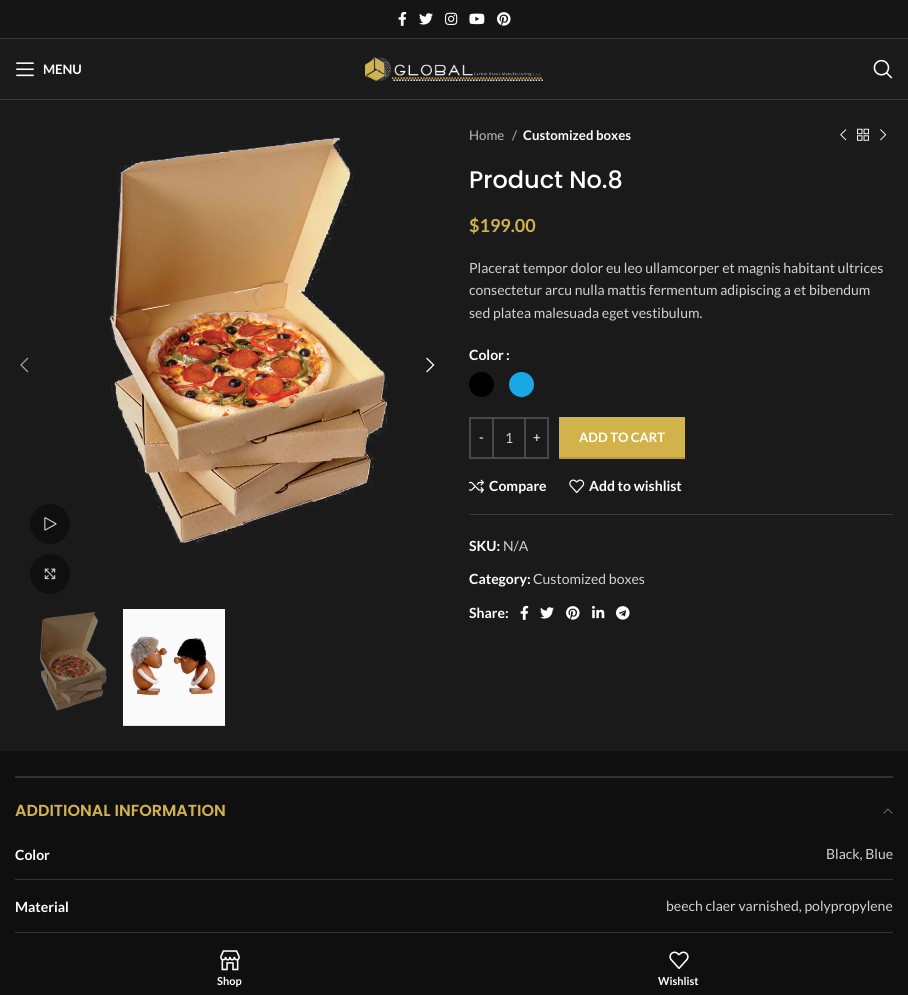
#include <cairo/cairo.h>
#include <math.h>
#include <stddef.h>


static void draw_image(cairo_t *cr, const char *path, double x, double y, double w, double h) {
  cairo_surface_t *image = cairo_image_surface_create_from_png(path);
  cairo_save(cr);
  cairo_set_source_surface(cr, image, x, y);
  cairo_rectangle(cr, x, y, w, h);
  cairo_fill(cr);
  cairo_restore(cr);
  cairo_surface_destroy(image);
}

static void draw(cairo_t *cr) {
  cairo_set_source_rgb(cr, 26 / 255.0, 26 / 255.0, 26 / 255.0);
  cairo_paint(cr);
  cairo_set_source_rgb(cr, 21 / 255.0, 21 / 255.0, 21 / 255.0);
  cairo_rectangle(cr, 0, 0, 908, 38);
  cairo_fill(cr);
  cairo_set_source_rgb(cr, 56 / 255.0, 56 / 255.0, 56 / 255.0);
  cairo_rectangle(cr, 0, 38, 908, 1);
  cairo_fill(cr);
  draw_image(cr, "images/1.png", 398, 11, 9, 15);
  draw_image(cr, "images/2.png", 419, 13, 14, 12);
  draw_image(cr, "images/3.png", 445, 12, 13, 13);
  draw_image(cr, "images/4.png", 469, 13, 16, 12);
  draw_image(cr, "images/5.png", 497, 12, 14, 14);
  cairo_set_source_rgb(cr, 60 / 255.0, 60 / 255.0, 60 / 255.0);
  cairo_rectangle(cr, 0, 99, 908, 1);
  cairo_fill(cr);
  draw_image(cr, "images/6.png", 16, 62, 18, 15);
  draw_image(cr, "images/7.png", 365, 57, 178, 24);
  draw_image(cr, "images/8.png", 873, 59, 20, 20);
  draw_image(cr, "images/9.png", 105, 137, 282, 407);
  draw_image(cr, "images/10.png", 20, 357, 9, 16);
  draw_image(cr, "images/11.png", 426, 357, 9, 16);
  cairo_set_source_rgb(cr, 15 / 255.0, 15 / 255.0, 15 / 255.0);
  cairo_arc(cr, 50, 524, 20, 0, 2 * M_PI);
  cairo_fill(cr);
  draw_image(cr, "images/12.png", 44, 517, 13, 14);
  cairo_arc(cr, 50, 574, 20, 0, 2 * M_PI);
  cairo_fill(cr);
  draw_image(cr, "images/13.png", 44, 568, 12, 12);
  draw_image(cr, "images/14.png", 39, 612, 68, 99);
  draw_image(cr, "images/15.png", 123, 609, 102, 117);
  draw_image(cr, "images/16.png", 840, 129, 7, 12);
  draw_image(cr, "images/17.png", 857, 128, 12, 13);
  draw_image(cr, "images/18.png", 880, 129, 7, 12);
  cairo_set_source_rgb(cr, 0, 0, 0);
  cairo_arc(cr, 481.5, 384.5, 12.5, 0, 2 * M_PI);
  cairo_fill(cr);
  cairo_set_source_rgb(cr, 25 / 255.0, 168 / 255.0, 227 / 255.0);
  cairo_arc(cr, 521.5, 384.5, 12.5, 0, 2 * M_PI);
  cairo_fill(cr);
  cairo_rectangle(cr, 470, 418, 23, 40);
  cairo_set_source_rgb(cr, 72 / 255.0, 72 / 255.0, 72 / 255.0);
  cairo_stroke(cr);
  cairo_rectangle(cr, 494, 417, 30, 2);
  cairo_fill(cr);
  cairo_rectangle(cr, 494, 457, 30, 2);
  cairo_fill(cr);
  cairo_rectangle(cr, 525, 418, 23, 40);
  cairo_stroke(cr);
  cairo_set_source_rgb(cr, 210 / 255.0, 179 / 255.0, 75 / 255.0);
  cairo_rectangle(cr, 559, 417, 126, 40);
  cairo_fill(cr);
  cairo_set_source_rgb(cr, 179 / 255.0, 152 / 255.0, 64 / 255.0);
  cairo_rectangle(cr, 559, 457, 126, 2);
  cairo_fill(cr);
  draw_image(cr, "images/19.png", 469, 479, 15, 14);
  draw_image(cr, "images/20.png", 569, 479, 16, 14);
  cairo_set_source_rgb(cr, 60 / 255.0, 60 / 255.0, 60 / 255.0);
  cairo_rectangle(cr, 469, 514, 424, 1);
  cairo_fill(cr);
  draw_image(cr, "images/21.png", 520, 605, 9, 15);
  draw_image(cr, "images/22.png", 540, 607, 14, 12);
  draw_image(cr, "images/23.png", 566, 606, 14, 14);
  draw_image(cr, "images/24.png", 592, 605, 13, 14);
  draw_image(cr, "images/25.png", 616, 606, 14, 14);
  cairo_set_source_rgb(cr, 15 / 255.0, 15 / 255.0, 15 / 255.0);
  cairo_rectangle(cr, 0, 751, 908, 244);
  cairo_fill(cr);
  cairo_set_source_rgb(cr, 51 / 255.0, 51 / 255.0, 51 / 255.0);
  cairo_rectangle(cr, 15, 776, 878, 2);
  cairo_fill(cr);
  draw_image(cr, "images/26.png", 883, 808, 10, 6);
  cairo_rectangle(cr, 15, 879, 878, 1);
  cairo_fill(cr);
  cairo_rectangle(cr, 15, 932, 878, 1);
  cairo_fill(cr);
  draw_image(cr, "images/27.png", 220, 950, 20, 21);
  draw_image(cr, "images/28.png", 669, 951, 20, 18);
  cairo_select_font_face(cr, "Lato", CAIRO_FONT_SLANT_NORMAL, CAIRO_FONT_WEIGHT_BOLD);
  cairo_set_font_size(cr, 13);
  cairo_set_source_rgb(cr, 1, 1, 1);
  cairo_move_to(cr, 43, 74);
  cairo_show_text(cr, "MENU");
  cairo_select_font_face(cr, "Lato", CAIRO_FONT_SLANT_NORMAL, CAIRO_FONT_WEIGHT_NORMAL);
  cairo_set_font_size(cr, 13.25);
  cairo_set_source_rgb(cr, 186 / 255.0, 186 / 255.0, 186 / 255.0);
  cairo_move_to(cr, 469, 140);
  cairo_show_text(cr, "Home");
  cairo_move_to(cr, 512, 140);
  cairo_show_text(cr, "/");
  cairo_select_font_face(cr, "Lato", CAIRO_FONT_SLANT_NORMAL, CAIRO_FONT_WEIGHT_BOLD);
  cairo_set_source_rgb(cr, 1, 1, 1);
  cairo_move_to(cr, 523, 140);
  cairo_show_text(cr, "Customized boxes");
  cairo_select_font_face(cr, "Poppins Medium", CAIRO_FONT_SLANT_NORMAL, CAIRO_FONT_WEIGHT_NORMAL);
  cairo_set_font_size(cr, 24);
  cairo_move_to(cr, 469, 188);
  cairo_show_text(cr, "Product No.8");
  cairo_select_font_face(cr, "Lato", CAIRO_FONT_SLANT_NORMAL, CAIRO_FONT_WEIGHT_BOLD);
  cairo_set_font_size(cr, 18);
  cairo_set_source_rgb(cr, 210 / 255.0, 179 / 255.0, 75 / 255.0);
  cairo_move_to(cr, 469, 232);
  cairo_show_text(cr, "$199.00");
  cairo_select_font_face(cr, "Lato", CAIRO_FONT_SLANT_NORMAL, CAIRO_FONT_WEIGHT_NORMAL);
  cairo_set_font_size(cr, 14);
  cairo_set_source_rgb(cr, 209 / 255.0, 209 / 255.0, 209 / 255.0);
  cairo_move_to(cr, 469, 273);
  cairo_show_text(cr, "Placerat tempor dolor eu leo ullamcorper et magnis habitant ultrices");
  cairo_move_to(cr, 469, 295);
  cairo_show_text(cr, "consectetur arcu nulla mattis fermentum adipiscing a et bibendum");
  cairo_move_to(cr, 469, 318);
  cairo_show_text(cr, "sed platea malesuada eget vestibulum.");
  cairo_select_font_face(cr, "Lato", CAIRO_FONT_SLANT_NORMAL, CAIRO_FONT_WEIGHT_BOLD);
  cairo_set_source_rgb(cr, 1, 1, 1);
  cairo_move_to(cr, 469, 360);
  cairo_show_text(cr, "Color");
  cairo_move_to(cr, 506, 360);
  cairo_show_text(cr, ":");
  cairo_set_font_size(cr, 13);
  cairo_set_source_rgb(cr, 209 / 255.0, 209 / 255.0, 209 / 255.0);
  cairo_move_to(cr, 479, 442);
  cairo_show_text(cr, "-");
  cairo_select_font_face(cr, "Lato", CAIRO_FONT_SLANT_NORMAL, CAIRO_FONT_WEIGHT_NORMAL);
  cairo_set_font_size(cr, 14);
  cairo_move_to(cr, 505, 443);
  cairo_show_text(cr, "1");
  cairo_select_font_face(cr, "Lato", CAIRO_FONT_SLANT_NORMAL, CAIRO_FONT_WEIGHT_BOLD);
  cairo_set_font_size(cr, 13);
  cairo_move_to(cr, 533, 442);
  cairo_show_text(cr, "+");
  cairo_set_source_rgb(cr, 1, 1, 1);
  cairo_move_to(cr, 579, 442);
  cairo_show_text(cr, "ADD TO CART");
  cairo_set_font_size(cr, 14);
  cairo_move_to(cr, 489, 491);
  cairo_show_text(cr, "Compare");
  cairo_move_to(cr, 589, 491);
  cairo_show_text(cr, "Add to wishlist");
  cairo_move_to(cr, 469, 551);
  cairo_show_text(cr, "SKU:");
  cairo_select_font_face(cr, "Lato", CAIRO_FONT_SLANT_NORMAL, CAIRO_FONT_WEIGHT_NORMAL);
  cairo_set_source_rgb(cr, 209 / 255.0, 209 / 255.0, 209 / 255.0);
  cairo_move_to(cr, 503, 551);
  cairo_show_text(cr, "N/A");
  cairo_select_font_face(cr, "Lato", CAIRO_FONT_SLANT_NORMAL, CAIRO_FONT_WEIGHT_BOLD);
  cairo_set_source_rgb(cr, 1, 1, 1);
  cairo_move_to(cr, 469, 584);
  cairo_show_text(cr, "Category:");
  cairo_select_font_face(cr, "Lato", CAIRO_FONT_SLANT_NORMAL, CAIRO_FONT_WEIGHT_NORMAL);
  cairo_set_source_rgb(cr, 209 / 255.0, 209 / 255.0, 209 / 255.0);
  cairo_move_to(cr, 533, 584);
  cairo_show_text(cr, "Customized boxes");
  cairo_select_font_face(cr, "Lato", CAIRO_FONT_SLANT_NORMAL, CAIRO_FONT_WEIGHT_BOLD);
  cairo_set_source_rgb(cr, 1, 1, 1);
  cairo_move_to(cr, 469, 618);
  cairo_show_text(cr, "Share:");
  cairo_select_font_face(cr, "Poppins SemiBold", CAIRO_FONT_SLANT_NORMAL, CAIRO_FONT_WEIGHT_NORMAL);
  cairo_set_font_size(cr, 16);
  cairo_set_source_rgb(cr, 210 / 255.0, 179 / 255.0, 75 / 255.0);
  cairo_move_to(cr, 15, 816);
  cairo_show_text(cr, "ADDITIONAL INFORMATION");
  cairo_select_font_face(cr, "Lato", CAIRO_FONT_SLANT_NORMAL, CAIRO_FONT_WEIGHT_BOLD);
  cairo_set_font_size(cr, 14);
  cairo_set_source_rgb(cr, 1, 1, 1);
  cairo_move_to(cr, 15, 860);
  cairo_show_text(cr, "Color");
  cairo_select_font_face(cr, "Lato", CAIRO_FONT_SLANT_NORMAL, CAIRO_FONT_WEIGHT_NORMAL);
  cairo_set_source_rgb(cr, 209 / 255.0, 209 / 255.0, 209 / 255.0);
  cairo_move_to(cr, 826, 859);
  cairo_show_text(cr, "Black, Blue");
  cairo_select_font_face(cr, "Lato", CAIRO_FONT_SLANT_NORMAL, CAIRO_FONT_WEIGHT_BOLD);
  cairo_set_source_rgb(cr, 1, 1, 1);
  cairo_move_to(cr, 15, 912);
  cairo_show_text(cr, "Material");
  cairo_select_font_face(cr, "Lato", CAIRO_FONT_SLANT_NORMAL, CAIRO_FONT_WEIGHT_NORMAL);
  cairo_set_source_rgb(cr, 209 / 255.0, 209 / 255.0, 209 / 255.0);
  cairo_move_to(cr, 666, 911);
  cairo_show_text(cr, "beech claer varnished, polypropylene");
  cairo_select_font_face(cr, "Lato", CAIRO_FONT_SLANT_NORMAL, CAIRO_FONT_WEIGHT_BOLD);
  cairo_set_font_size(cr, 11);
  cairo_set_source_rgb(cr, 1, 1, 1);
  cairo_move_to(cr, 217, 985);
  cairo_show_text(cr, "Shop");
  cairo_move_to(cr, 658, 985);
  cairo_show_text(cr, "Wishlist");
}

int main(void) {
  cairo_surface_t *surface = cairo_image_surface_create(CAIRO_FORMAT_RGB24, 908, 995);
  cairo_t *cr = cairo_create(surface);
  cairo_font_options_t *options = cairo_font_options_create();
  cairo_font_options_set_hint_metrics(options, CAIRO_HINT_METRICS_OFF);
  cairo_font_options_set_hint_style(options, CAIRO_HINT_STYLE_NONE);
  cairo_set_font_options(cr, options);
  cairo_set_miter_limit(cr, 4);
  draw(cr);
  cairo_surface_write_to_png(surface, "out.png");
  cairo_font_options_destroy(options);
  cairo_destroy(cr);
  cairo_surface_destroy(surface);
  return 0;
}
